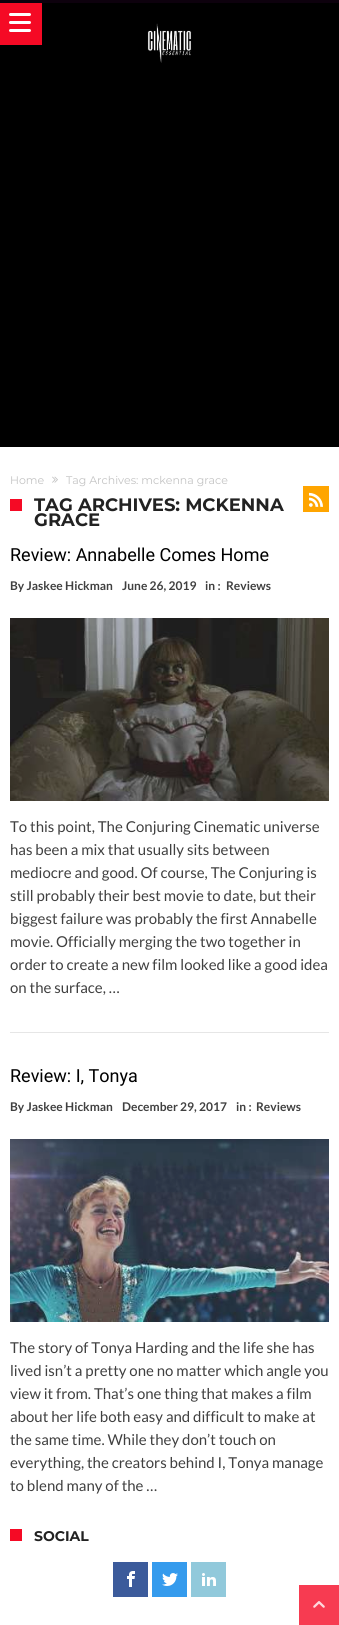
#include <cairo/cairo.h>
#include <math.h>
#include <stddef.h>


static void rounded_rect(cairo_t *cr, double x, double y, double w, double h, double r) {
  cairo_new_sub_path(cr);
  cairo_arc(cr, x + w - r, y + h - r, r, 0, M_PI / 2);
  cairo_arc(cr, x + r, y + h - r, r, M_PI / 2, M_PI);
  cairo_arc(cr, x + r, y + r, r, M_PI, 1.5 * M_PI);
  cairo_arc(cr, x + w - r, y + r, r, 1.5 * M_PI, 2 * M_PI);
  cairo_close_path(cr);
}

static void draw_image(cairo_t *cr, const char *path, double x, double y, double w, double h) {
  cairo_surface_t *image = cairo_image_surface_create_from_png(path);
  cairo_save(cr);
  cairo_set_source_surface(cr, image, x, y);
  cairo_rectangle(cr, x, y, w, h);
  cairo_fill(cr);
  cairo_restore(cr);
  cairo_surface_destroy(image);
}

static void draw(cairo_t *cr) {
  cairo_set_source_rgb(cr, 1, 1, 1);
  cairo_paint(cr);
  cairo_set_source_rgb(cr, 13 / 255.0, 1 / 255.0, 13 / 255.0);
  cairo_rectangle(cr, 0, 0, 339, 3);
  cairo_fill(cr);
  cairo_set_source_rgb(cr, 0, 0, 0);
  cairo_rectangle(cr, 0, 3, 339, 444);
  cairo_fill(cr);
  draw_image(cr, "images/1.png", 147, 23, 45, 40);
  cairo_set_source_rgb(cr, 245 / 255.0, 10 / 255.0, 37 / 255.0);
  cairo_rectangle(cr, 0, 3, 42, 42);
  cairo_fill(cr);
  cairo_set_source_rgb(cr, 1, 1, 1);
  rounded_rect(cr, 9, 13, 22, 3, 1.5);
  cairo_fill(cr);
  rounded_rect(cr, 9, 21, 22, 3, 1.5);
  cairo_fill(cr);
  rounded_rect(cr, 9, 29, 22, 3, 1.5);
  cairo_fill(cr);
  draw_image(cr, "images/2.png", 52, 476, 6, 7);
  cairo_set_source_rgb(cr, 245 / 255.0, 10 / 255.0, 37 / 255.0);
  cairo_rectangle(cr, 10, 499, 12, 12);
  cairo_fill(cr);
  cairo_set_source_rgb(cr, 1, 165 / 255.0, 0);
  cairo_rectangle(cr, 303, 486, 26, 26);
  cairo_fill(cr);
  draw_image(cr, "images/3.png", 309, 492, 14, 15);
  cairo_set_source_rgb(cr, 230 / 255.0, 230 / 255.0, 230 / 255.0);
  cairo_rectangle(cr, 10, 1032, 319, 1);
  cairo_fill(cr);
  draw_image(cr, "images/4.png", 10, 618, 319, 183);
  draw_image(cr, "images/5.png", 10, 1139, 319, 183);
  cairo_set_source_rgb(cr, 245 / 255.0, 10 / 255.0, 37 / 255.0);
  cairo_rectangle(cr, 10, 1529, 12, 12);
  cairo_fill(cr);
  cairo_set_source_rgb(cr, 60 / 255.0, 91 / 255.0, 155 / 255.0);
  cairo_rectangle(cr, 113, 1562, 35, 35);
  cairo_fill(cr);
  draw_image(cr, "images/6.png", 127, 1571, 8, 16);
  cairo_set_source_rgb(cr, 53 / 255.0, 155 / 255.0, 237 / 255.0);
  cairo_rectangle(cr, 152, 1562, 35, 35);
  cairo_fill(cr);
  draw_image(cr, "images/7.png", 162, 1573, 16, 13);
  cairo_set_source_rgb(cr, 145 / 255.0, 201 / 255.0, 219 / 255.0);
  cairo_rectangle(cr, 191, 1562, 35, 35);
  cairo_fill(cr);
  draw_image(cr, "images/8.png", 202, 1573, 14, 13);
  cairo_set_source_rgb(cr, 247 / 255.0, 59 / 255.0, 81 / 255.0);
  cairo_rectangle(cr, 299, 1585, 40, 40);
  cairo_fill(cr);
  draw_image(cr, "images/9.png", 313, 1601, 12, 7);
  cairo_select_font_face(cr, "Montserrat", CAIRO_FONT_SLANT_NORMAL, CAIRO_FONT_WEIGHT_NORMAL);
  cairo_set_font_size(cr, 11);
  cairo_set_source_rgb(cr, 195 / 255.0, 195 / 255.0, 195 / 255.0);
  cairo_move_to(cr, 10, 484);
  cairo_show_text(cr, "Home");
  cairo_move_to(cr, 66, 484);
  cairo_show_text(cr, "Tag Archives: mckenna grace");
  cairo_select_font_face(cr, "Montserrat", CAIRO_FONT_SLANT_NORMAL, CAIRO_FONT_WEIGHT_BOLD);
  cairo_set_font_size(cr, 18);
  cairo_set_source_rgb(cr, 34 / 255.0, 34 / 255.0, 34 / 255.0);
  cairo_move_to(cr, 34, 511);
  cairo_show_text(cr, "TAG ARCHIVES: MCKENNA");
  cairo_move_to(cr, 34, 526);
  cairo_show_text(cr, "GRACE");
  cairo_select_font_face(cr, "Roboto", CAIRO_FONT_SLANT_NORMAL, CAIRO_FONT_WEIGHT_NORMAL);
  cairo_set_source_rgb(cr, 0, 0, 0);
  cairo_move_to(cr, 10, 561);
  cairo_show_text(cr, "Review: Annabelle Comes Home");
  cairo_select_font_face(cr, "Lato", CAIRO_FONT_SLANT_NORMAL, CAIRO_FONT_WEIGHT_BOLD);
  cairo_set_font_size(cr, 12);
  cairo_set_source_rgb(cr, 64 / 255.0, 64 / 255.0, 64 / 255.0);
  cairo_move_to(cr, 10, 590);
  cairo_show_text(cr, "By Jaskee Hickman");
  cairo_move_to(cr, 122, 590);
  cairo_show_text(cr, "June 26, 2019");
  cairo_move_to(cr, 205, 590);
  cairo_show_text(cr, "in :");
  cairo_move_to(cr, 226, 590);
  cairo_show_text(cr, "Reviews");
  cairo_select_font_face(cr, "Lato", CAIRO_FONT_SLANT_NORMAL, CAIRO_FONT_WEIGHT_NORMAL);
  cairo_set_font_size(cr, 15);
  cairo_move_to(cr, 10, 832);
  cairo_show_text(cr, "To this point, The Conjuring Cinematic universe");
  cairo_move_to(cr, 10, 855);
  cairo_show_text(cr, "has been a mix that usually sits between");
  cairo_move_to(cr, 10, 878);
  cairo_show_text(cr, "mediocre and good. Of course, The Conjuring is");
  cairo_move_to(cr, 10, 901);
  cairo_show_text(cr, "still probably their best movie to date, but their");
  cairo_move_to(cr, 10, 924);
  cairo_show_text(cr, "biggest failure was probably the first Annabelle");
  cairo_move_to(cr, 10, 947);
  cairo_show_text(cr, "movie. Officially merging the two together in");
  cairo_move_to(cr, 10, 970);
  cairo_show_text(cr, "order to create a new film looked like a good idea");
  cairo_move_to(cr, 10, 993);
  cairo_show_text(cr, "on the surface, …");
  cairo_select_font_face(cr, "Roboto", CAIRO_FONT_SLANT_NORMAL, CAIRO_FONT_WEIGHT_NORMAL);
  cairo_set_font_size(cr, 18);
  cairo_set_source_rgb(cr, 0, 0, 0);
  cairo_move_to(cr, 10, 1082);
  cairo_show_text(cr, "Review: I, Tonya");
  cairo_select_font_face(cr, "Lato", CAIRO_FONT_SLANT_NORMAL, CAIRO_FONT_WEIGHT_BOLD);
  cairo_set_font_size(cr, 12);
  cairo_set_source_rgb(cr, 64 / 255.0, 64 / 255.0, 64 / 255.0);
  cairo_move_to(cr, 10, 1111);
  cairo_show_text(cr, "By Jaskee Hickman");
  cairo_move_to(cr, 122, 1111);
  cairo_show_text(cr, "December 29, 2017");
  cairo_move_to(cr, 236, 1111);
  cairo_show_text(cr, "in :");
  cairo_move_to(cr, 256, 1111);
  cairo_show_text(cr, "Reviews");
  cairo_select_font_face(cr, "Lato", CAIRO_FONT_SLANT_NORMAL, CAIRO_FONT_WEIGHT_NORMAL);
  cairo_set_font_size(cr, 15);
  cairo_move_to(cr, 10, 1353);
  cairo_show_text(cr, "The story of Tonya Harding and the life she has");
  cairo_move_to(cr, 10, 1376);
  cairo_show_text(cr, "lived isn’t a pretty one no matter which angle you");
  cairo_move_to(cr, 10, 1399);
  cairo_show_text(cr, "view it from. That’s one thing that makes a film");
  cairo_move_to(cr, 10, 1422);
  cairo_show_text(cr, "about her life both easy and difficult to make at");
  cairo_move_to(cr, 10, 1445);
  cairo_show_text(cr, "the same time. While they don’t touch on");
  cairo_move_to(cr, 10, 1468);
  cairo_show_text(cr, "everything, the creators behind I, Tonya manage");
  cairo_move_to(cr, 10, 1491);
  cairo_show_text(cr, "to blend many of the …");
  cairo_select_font_face(cr, "Montserrat", CAIRO_FONT_SLANT_NORMAL, CAIRO_FONT_WEIGHT_BOLD);
  cairo_set_font_size(cr, 14);
  cairo_set_source_rgb(cr, 34 / 255.0, 34 / 255.0, 34 / 255.0);
  cairo_move_to(cr, 34, 1541);
  cairo_show_text(cr, "SOCIAL");
}

int main(void) {
  cairo_surface_t *surface = cairo_image_surface_create(CAIRO_FORMAT_RGB24, 339, 1625);
  cairo_t *cr = cairo_create(surface);
  cairo_font_options_t *options = cairo_font_options_create();
  cairo_font_options_set_hint_metrics(options, CAIRO_HINT_METRICS_OFF);
  cairo_font_options_set_hint_style(options, CAIRO_HINT_STYLE_NONE);
  cairo_set_font_options(cr, options);
  cairo_set_miter_limit(cr, 4);
  draw(cr);
  cairo_surface_write_to_png(surface, "out.png");
  cairo_font_options_destroy(options);
  cairo_destroy(cr);
  cairo_surface_destroy(surface);
  return 0;
}
